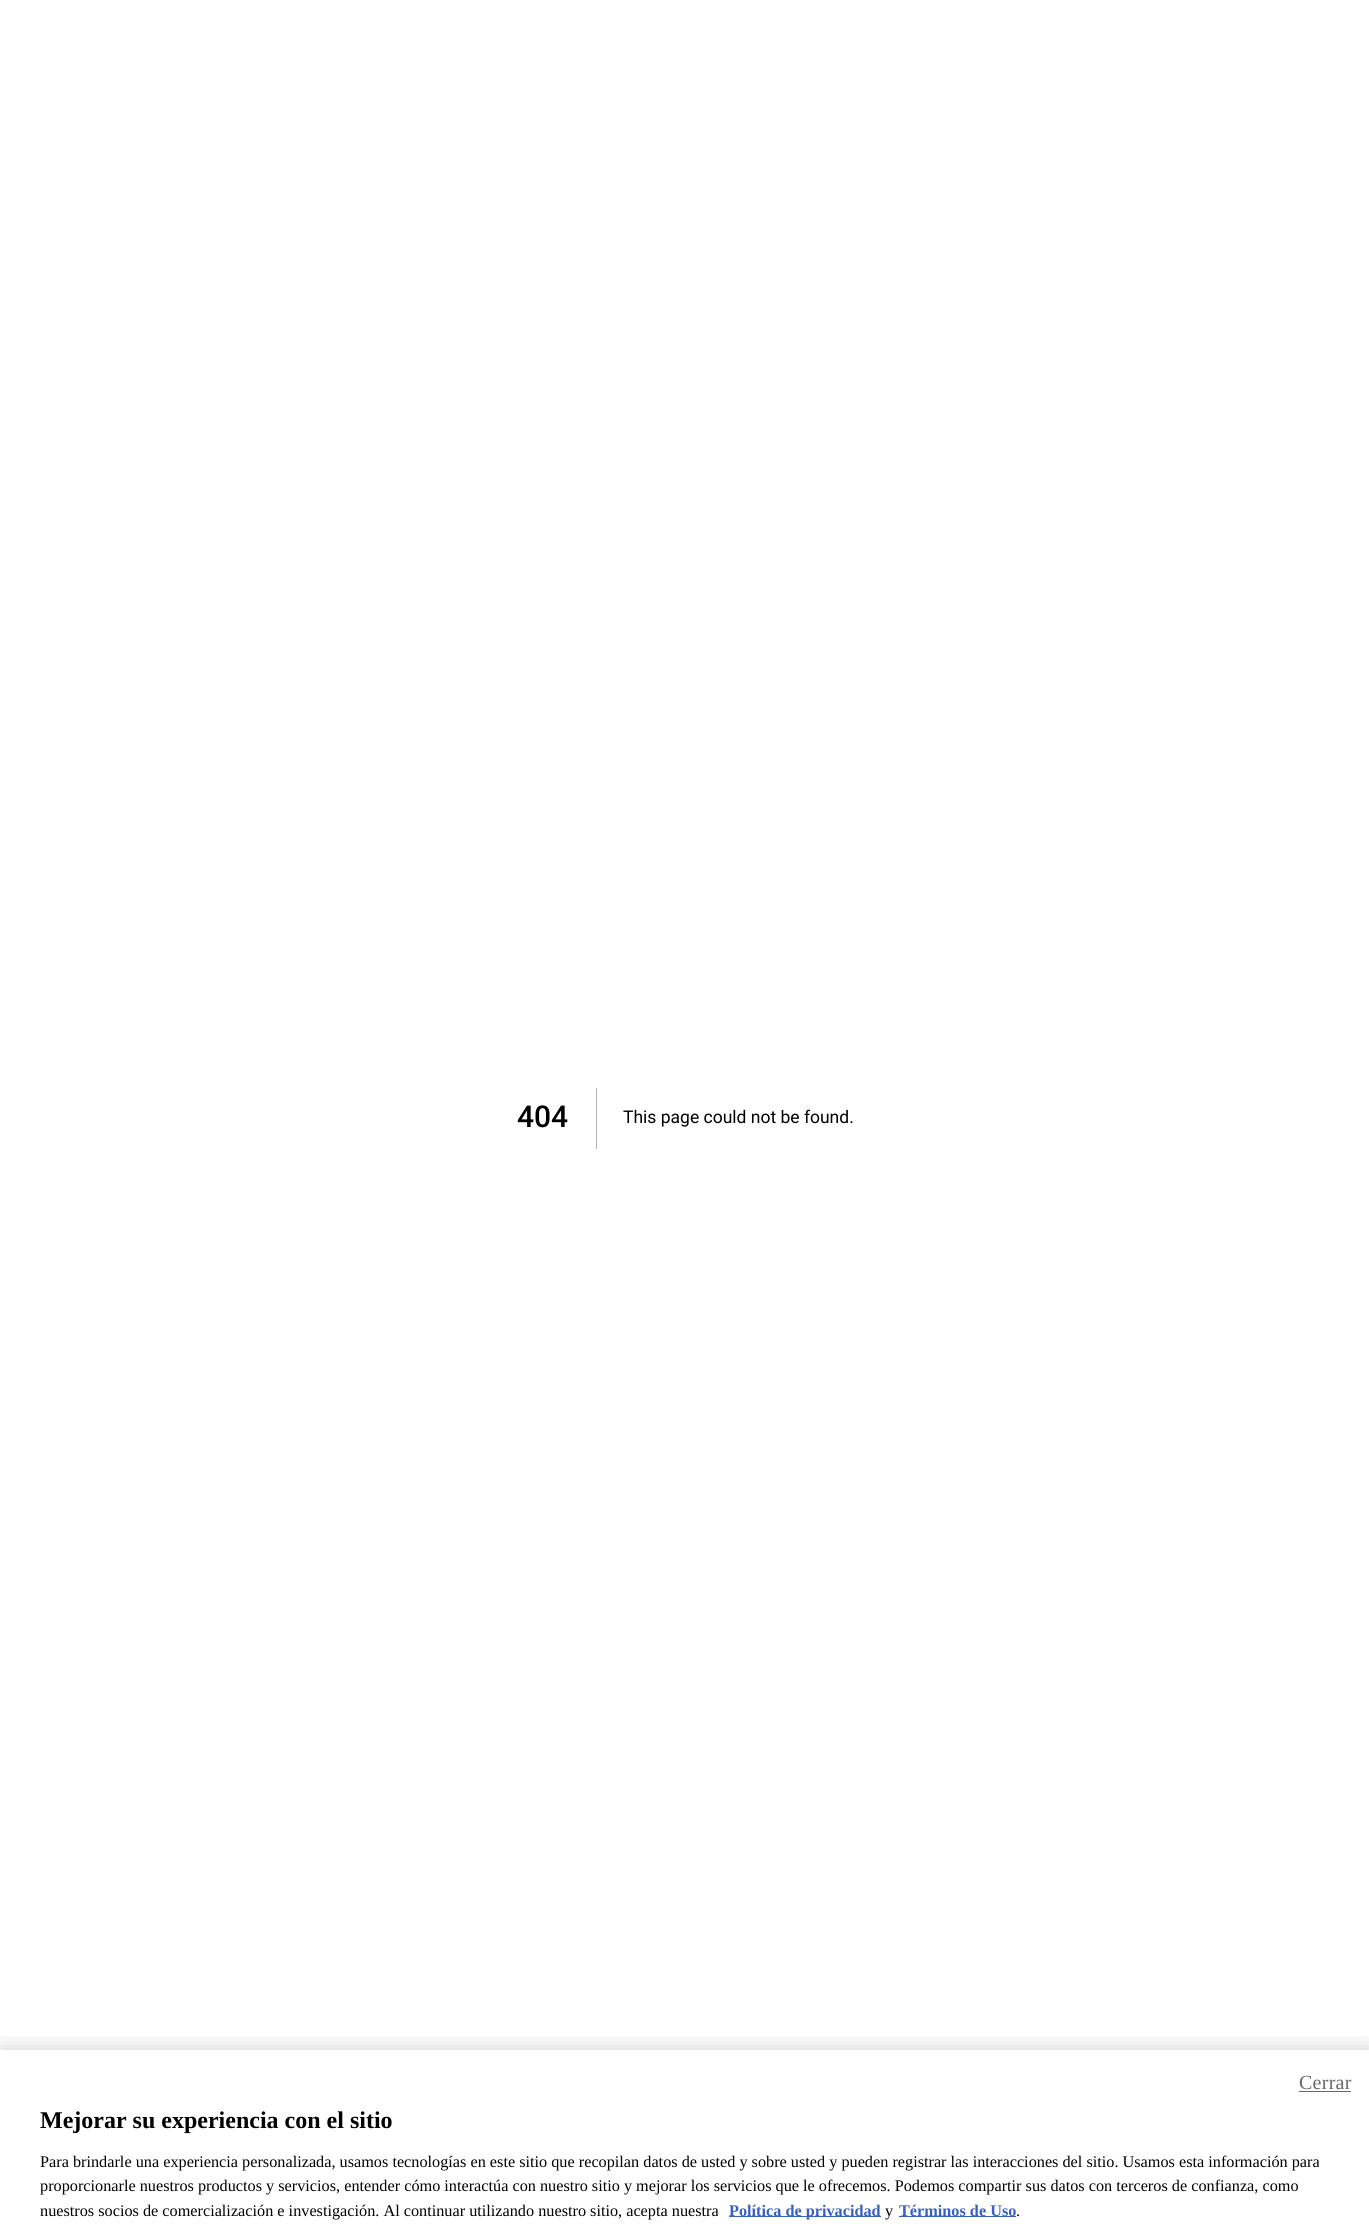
#include <cairo/cairo.h>
#include <math.h>
#include <stddef.h>


static void draw_spaced(cairo_t *cr, double x, double y, const char *s, double letter, double word) {
  cairo_move_to(cr, x, y);
  while (*s) {
    char ch[5] = {0};
    int n = 0;
    do ch[n++] = *s++; while ((*s & 0xC0) == 0x80);
    cairo_show_text(cr, ch);
    cairo_rel_move_to(cr, letter + word * (*ch == ' '), 0);
  }
}

static void rounded_rect(cairo_t *cr, double x, double y, double w, double h, double r) {
  cairo_new_sub_path(cr);
  cairo_arc(cr, x + w - r, y + h - r, r, 0, M_PI / 2);
  cairo_arc(cr, x + r, y + h - r, r, M_PI / 2, M_PI);
  cairo_arc(cr, x + r, y + r, r, M_PI, 1.5 * M_PI);
  cairo_arc(cr, x + w - r, y + r, r, 1.5 * M_PI, 2 * M_PI);
  cairo_close_path(cr);
}

static void draw_shadow(cairo_t *cr, double x, double y, double w, double h, double r, double blur, double alpha) {
  cairo_push_group_with_content(cr, CAIRO_CONTENT_ALPHA);
  cairo_set_operator(cr, CAIRO_OPERATOR_SOURCE);
  for (int i = 15; i >= -15 && fmin(w, h) + blur * i / 3 > 0; i -= 2) {
    double e = blur * i / 6;
    cairo_set_source_rgba(cr, 0, 0, 0, alpha * erfc((i - 1) / 8.5) / 2);
    rounded_rect(cr, x - e, y - e, w + 2 * e, h + 2 * e, fmax(0, fmin(r + e + blur * .6, fmin(w, h) / 2 + e)));
    cairo_fill(cr);
  }
  cairo_pattern_t *soft = cairo_pop_group(cr);
  cairo_mask(cr, soft);
  cairo_pattern_destroy(soft);
}

static void draw(cairo_t *cr) {
  cairo_set_source_rgb(cr, 1, 1, 1);
  cairo_paint(cr);
  cairo_set_source_rgb(cr, 179 / 255.0, 179 / 255.0, 179 / 255.0);
  cairo_rectangle(cr, 596, 1088, 1, 61);
  cairo_fill(cr);
  cairo_save(cr);
  cairo_rectangle(cr, 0, 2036, 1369, 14);
  cairo_clip(cr);
  cairo_set_source_rgb(cr, 0, 0, 0);
  draw_shadow(cr, 0, 2050, 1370, 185, 0, 11, 0.2);
  cairo_restore(cr);
  cairo_set_source_rgb(cr, 105 / 255.0, 105 / 255.0, 105 / 255.0);
  cairo_rectangle(cr, 1299, 2091, 52, 1);
  cairo_fill(cr);
  cairo_set_source_rgb(cr, 56 / 255.0, 96 / 255.0, 190 / 255.0);
  cairo_rectangle(cr, 729, 2216, 152, 1);
  cairo_fill(cr);
  cairo_rectangle(cr, 899, 2216, 117, 1);
  cairo_fill(cr);
  cairo_select_font_face(cr, "Roboto Medium", CAIRO_FONT_SLANT_NORMAL, CAIRO_FONT_WEIGHT_NORMAL);
  cairo_set_font_size(cr, 30);
  cairo_set_source_rgb(cr, 0, 0, 0);
  cairo_move_to(cr, 517, 1127);
  cairo_show_text(cr, "404");
  cairo_select_font_face(cr, "Roboto", CAIRO_FONT_SLANT_NORMAL, CAIRO_FONT_WEIGHT_NORMAL);
  cairo_set_font_size(cr, 17.5);
  cairo_move_to(cr, 623, 1123);
  cairo_show_text(cr, "This page could not be found.");
  cairo_select_font_face(cr, "Liberation Serif", CAIRO_FONT_SLANT_NORMAL, CAIRO_FONT_WEIGHT_NORMAL);
  cairo_set_font_size(cr, 20);
  cairo_set_source_rgb(cr, 105 / 255.0, 105 / 255.0, 105 / 255.0);
  draw_spaced(cr, 1299, 2089, "Cerrar", 0.25, 0);
  cairo_select_font_face(cr, "Liberation Serif", CAIRO_FONT_SLANT_NORMAL, CAIRO_FONT_WEIGHT_BOLD);
  cairo_set_font_size(cr, 24);
  cairo_set_source_rgb(cr, 0, 0, 0);
  cairo_move_to(cr, 40, 2128);
  cairo_show_text(cr, "Mejorar su experiencia con el sitio");
  cairo_select_font_face(cr, "Liberation Serif", CAIRO_FONT_SLANT_NORMAL, CAIRO_FONT_WEIGHT_NORMAL);
  cairo_set_font_size(cr, 16.25);
  cairo_move_to(cr, 40, 2167);
  cairo_show_text(cr, "Para brindarle una experiencia personalizada, usamos tecnologías en este sitio que recopilan datos de usted y sobre usted y pueden registrar las interacciones del sitio. Usamos esta información para");
  cairo_move_to(cr, 40, 2191);
  cairo_show_text(cr, "proporcionarle nuestros productos y servicios, entender cómo interactúa con nuestro sitio y mejorar los servicios que le ofrecemos. Podemos compartir sus datos con terceros de confianza, como");
  cairo_move_to(cr, 40, 2216);
  cairo_show_text(cr, "nuestros socios de comercialización e investigación. Al continuar utilizando nuestro sitio, acepta nuestra");
  cairo_select_font_face(cr, "Liberation Serif", CAIRO_FONT_SLANT_NORMAL, CAIRO_FONT_WEIGHT_BOLD);
  cairo_set_source_rgb(cr, 56 / 255.0, 96 / 255.0, 190 / 255.0);
  cairo_move_to(cr, 729, 2216);
  cairo_show_text(cr, "Política de privacidad");
  cairo_select_font_face(cr, "Liberation Serif", CAIRO_FONT_SLANT_NORMAL, CAIRO_FONT_WEIGHT_NORMAL);
  cairo_set_source_rgb(cr, 0, 0, 0);
  cairo_move_to(cr, 885, 2216);
  cairo_show_text(cr, "y");
  cairo_select_font_face(cr, "Liberation Serif", CAIRO_FONT_SLANT_NORMAL, CAIRO_FONT_WEIGHT_BOLD);
  cairo_set_source_rgb(cr, 56 / 255.0, 96 / 255.0, 190 / 255.0);
  cairo_move_to(cr, 899, 2216);
  cairo_show_text(cr, "Términos de Uso");
  cairo_select_font_face(cr, "Liberation Serif", CAIRO_FONT_SLANT_NORMAL, CAIRO_FONT_WEIGHT_NORMAL);
  cairo_set_source_rgb(cr, 0, 0, 0);
  cairo_move_to(cr, 1016, 2216);
  cairo_show_text(cr, ".");
}

int main(void) {
  cairo_surface_t *surface = cairo_image_surface_create(CAIRO_FORMAT_RGB24, 1369, 2234);
  cairo_t *cr = cairo_create(surface);
  cairo_font_options_t *options = cairo_font_options_create();
  cairo_font_options_set_hint_metrics(options, CAIRO_HINT_METRICS_OFF);
  cairo_font_options_set_hint_style(options, CAIRO_HINT_STYLE_NONE);
  cairo_set_font_options(cr, options);
  cairo_set_miter_limit(cr, 4);
  draw(cr);
  cairo_surface_write_to_png(surface, "out.png");
  cairo_font_options_destroy(options);
  cairo_destroy(cr);
  cairo_surface_destroy(surface);
  return 0;
}
